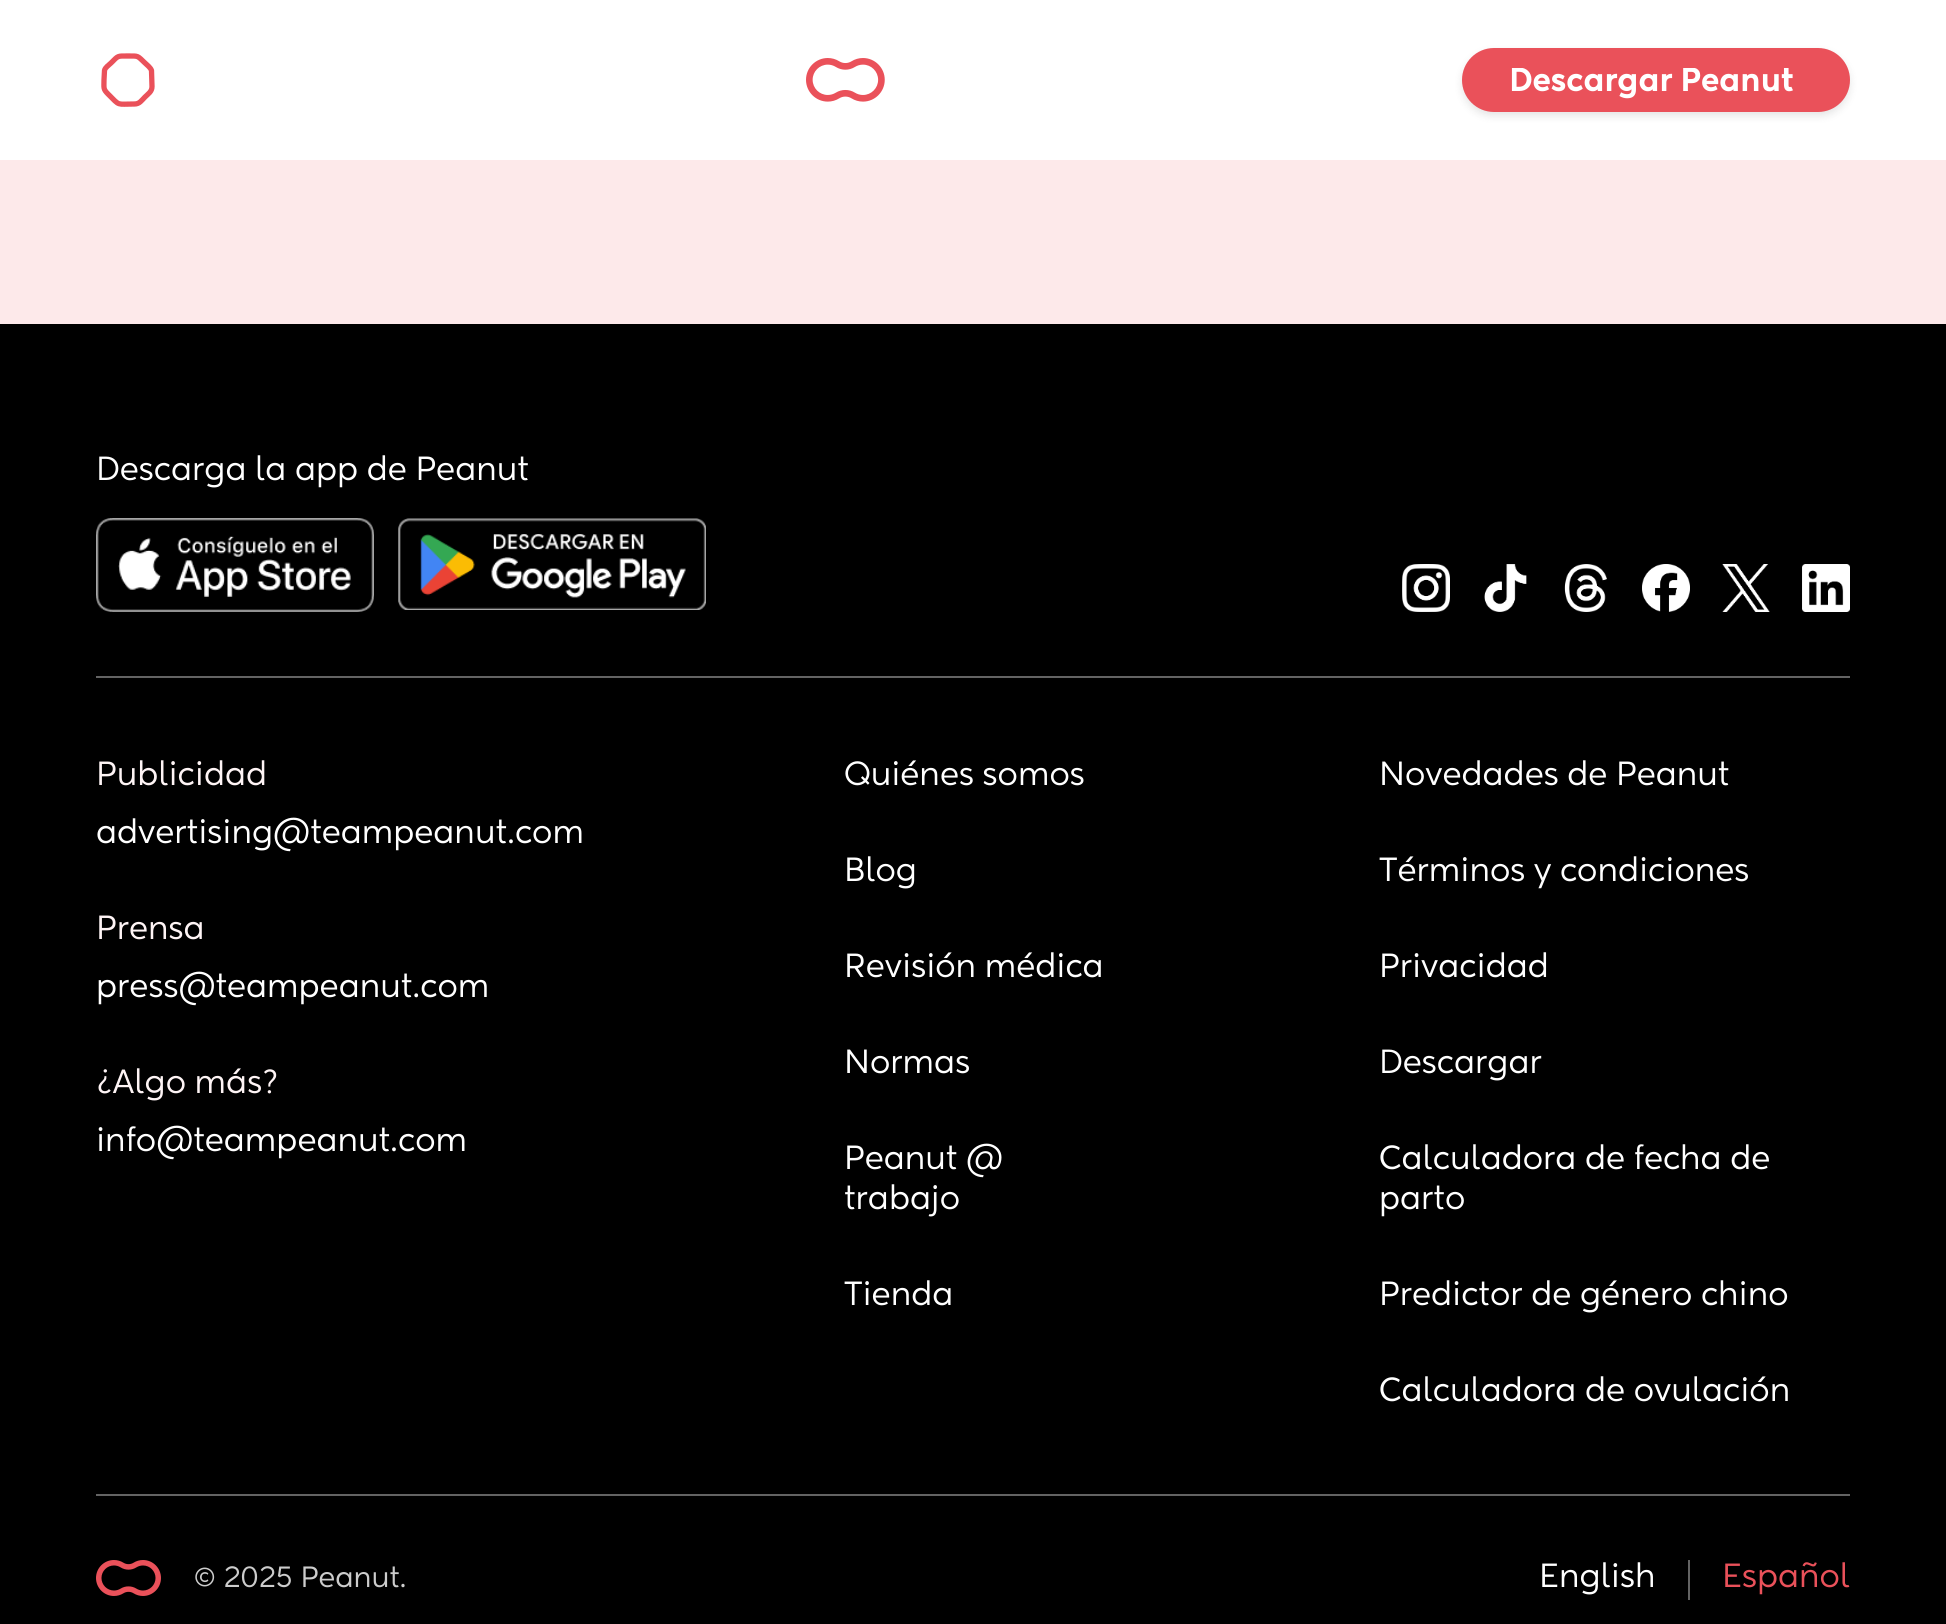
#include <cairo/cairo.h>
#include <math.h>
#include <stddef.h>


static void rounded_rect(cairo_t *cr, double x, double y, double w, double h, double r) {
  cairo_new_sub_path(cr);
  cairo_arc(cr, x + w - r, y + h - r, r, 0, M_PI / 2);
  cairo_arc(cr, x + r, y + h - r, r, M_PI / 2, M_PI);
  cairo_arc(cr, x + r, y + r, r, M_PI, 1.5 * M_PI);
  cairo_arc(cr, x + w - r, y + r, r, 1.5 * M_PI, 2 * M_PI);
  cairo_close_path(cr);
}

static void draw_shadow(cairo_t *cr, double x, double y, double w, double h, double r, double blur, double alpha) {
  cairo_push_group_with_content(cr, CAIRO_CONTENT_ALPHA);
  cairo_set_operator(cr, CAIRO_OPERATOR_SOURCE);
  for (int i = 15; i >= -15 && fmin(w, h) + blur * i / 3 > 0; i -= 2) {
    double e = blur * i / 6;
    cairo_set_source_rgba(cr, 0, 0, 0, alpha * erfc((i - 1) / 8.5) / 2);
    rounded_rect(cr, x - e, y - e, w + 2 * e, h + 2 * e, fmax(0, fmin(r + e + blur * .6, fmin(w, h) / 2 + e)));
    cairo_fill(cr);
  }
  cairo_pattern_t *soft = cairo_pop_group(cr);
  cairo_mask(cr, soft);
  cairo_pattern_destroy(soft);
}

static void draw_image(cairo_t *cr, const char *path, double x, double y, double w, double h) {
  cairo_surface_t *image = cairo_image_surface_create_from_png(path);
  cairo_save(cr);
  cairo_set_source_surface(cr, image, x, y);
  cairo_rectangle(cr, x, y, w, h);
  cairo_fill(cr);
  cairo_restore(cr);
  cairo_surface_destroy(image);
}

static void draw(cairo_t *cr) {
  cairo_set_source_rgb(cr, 253 / 255.0, 233 / 255.0, 234 / 255.0);
  cairo_paint(cr);
  cairo_set_source_rgb(cr, 1, 1, 1);
  cairo_rectangle(cr, 0, 0, 1946, 160);
  cairo_fill(cr);
  cairo_new_path(cr);
  cairo_move_to(cr, 134.5, 104);
  cairo_curve_to(cr, 116, 104, 120.5, 106.5, 108, 94);
  cairo_curve_to(cr, 103, 89, 104, 88, 104, 80);
  cairo_line_to(cr, 104.5, 70.5);
  cairo_curve_to(cr, 105, 67.5, 109, 65, 111, 63);
  cairo_curve_to(cr, 118.5, 55.5, 117, 56, 128, 56);
  cairo_curve_to(cr, 139, 56, 137, 55.5, 145, 63);
  cairo_curve_to(cr, 147, 65, 150.5, 67.5, 151.5, 70.5);
  cairo_line_to(cr, 152, 86.5);
  cairo_move_to(cr, 152, 86.5);
  cairo_curve_to(cr, 152, 91.5, 148.5, 93.5, 145, 97);
  cairo_curve_to(cr, 141.5, 100.5, 139.5, 104, 134.5, 104);
  cairo_set_source_rgb(cr, 234 / 255.0, 81 / 255.0, 90 / 255.0);
  cairo_set_line_width(cr, 5.3);
  cairo_set_line_cap(cr, CAIRO_LINE_CAP_ROUND);
  cairo_set_line_join(cr, CAIRO_LINE_JOIN_ROUND);
  cairo_stroke(cr);
  draw_image(cr, "images/1.png", 806, 58, 79, 44);
  cairo_set_source_rgb(cr, 0, 0, 0);
  draw_shadow(cr, 1462, 52, 388, 64, 32, 4, 0.1);
  cairo_set_source_rgb(cr, 234 / 255.0, 81 / 255.0, 90 / 255.0);
  rounded_rect(cr, 1462, 48, 388, 64, 32);
  cairo_fill(cr);
  cairo_set_source_rgb(cr, 0, 0, 0);
  cairo_rectangle(cr, 0, 324, 1946, 1300);
  cairo_fill(cr);
  draw_image(cr, "images/2.png", 96, 518, 278, 94);
  draw_image(cr, "images/3.png", 398, 518, 308, 92);
  draw_image(cr, "images/4.png", 1402, 564, 48, 48);
  draw_image(cr, "images/5.png", 1484, 564, 43, 48);
  draw_image(cr, "images/6.png", 1564, 564, 43, 48);
  draw_image(cr, "images/7.png", 1642, 564, 48, 48);
  draw_image(cr, "images/8.png", 1722, 564, 48, 48);
  draw_image(cr, "images/9.png", 1802, 564, 48, 48);
  cairo_set_source_rgb(cr, 99 / 255.0, 99 / 255.0, 99 / 255.0);
  cairo_rectangle(cr, 96, 676, 1754, 2);
  cairo_fill(cr);
  cairo_rectangle(cr, 96, 1494, 1754, 2);
  cairo_fill(cr);
  draw_image(cr, "images/10.png", 96, 1560, 65, 36);
  cairo_rectangle(cr, 1688, 1560, 2, 40);
  cairo_fill(cr);
  cairo_save(cr);
  cairo_rectangle(cr, 1510, 68, 292, 32);
  cairo_clip(cr);
  cairo_select_font_face(cr, "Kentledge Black", CAIRO_FONT_SLANT_NORMAL, CAIRO_FONT_WEIGHT_NORMAL);
  cairo_set_font_size(cr, 32);
  cairo_set_source_rgb(cr, 1, 1, 1);
  cairo_move_to(cr, 1509, 91);
  cairo_show_text(cr, "Descargar Peanut");
  cairo_restore(cr);
  cairo_select_font_face(cr, "Kentledge", CAIRO_FONT_SLANT_NORMAL, CAIRO_FONT_WEIGHT_NORMAL);
  cairo_set_font_size(cr, 32);
  cairo_set_source_rgb(cr, 1, 1, 1);
  cairo_move_to(cr, 96, 480);
  cairo_show_text(cr, "Descarga la app de Peanut");
  cairo_set_source_rgb(cr, 254 / 255.0, 244 / 255.0, 245 / 255.0);
  cairo_move_to(cr, 96, 785);
  cairo_show_text(cr, "Publicidad");
  cairo_set_source_rgb(cr, 1, 1, 1);
  cairo_move_to(cr, 96, 843);
  cairo_show_text(cr, "advertising@teampeanut.com");
  cairo_set_source_rgb(cr, 254 / 255.0, 244 / 255.0, 245 / 255.0);
  cairo_move_to(cr, 96, 939);
  cairo_show_text(cr, "Prensa");
  cairo_set_source_rgb(cr, 1, 1, 1);
  cairo_move_to(cr, 96, 997);
  cairo_show_text(cr, "press@teampeanut.com");
  cairo_set_source_rgb(cr, 254 / 255.0, 244 / 255.0, 245 / 255.0);
  cairo_move_to(cr, 96, 1093);
  cairo_show_text(cr, "¿Algo más?");
  cairo_set_source_rgb(cr, 1, 1, 1);
  cairo_move_to(cr, 96, 1151);
  cairo_show_text(cr, "info@teampeanut.com");
  cairo_move_to(cr, 844, 785);
  cairo_show_text(cr, "Quiénes somos");
  cairo_move_to(cr, 844, 881);
  cairo_show_text(cr, "Blog");
  cairo_move_to(cr, 844, 977);
  cairo_show_text(cr, "Revisión médica");
  cairo_move_to(cr, 844, 1073);
  cairo_show_text(cr, "Normas");
  cairo_move_to(cr, 844, 1169);
  cairo_show_text(cr, "Peanut @");
  cairo_move_to(cr, 844, 1209);
  cairo_show_text(cr, "trabajo");
  cairo_move_to(cr, 844, 1305);
  cairo_show_text(cr, "Tienda");
  cairo_move_to(cr, 1379, 785);
  cairo_show_text(cr, "Novedades de Peanut");
  cairo_move_to(cr, 1379, 881);
  cairo_show_text(cr, "Términos y condiciones");
  cairo_move_to(cr, 1379, 977);
  cairo_show_text(cr, "Privacidad");
  cairo_move_to(cr, 1379, 1073);
  cairo_show_text(cr, "Descargar");
  cairo_move_to(cr, 1379, 1169);
  cairo_show_text(cr, "Calculadora de fecha de");
  cairo_move_to(cr, 1379, 1209);
  cairo_show_text(cr, "parto");
  cairo_move_to(cr, 1379, 1305);
  cairo_show_text(cr, "Predictor de género chino");
  cairo_move_to(cr, 1379, 1401);
  cairo_show_text(cr, "Calculadora de ovulación");
  cairo_set_font_size(cr, 28);
  cairo_set_source_rgb(cr, 204 / 255.0, 204 / 255.0, 204 / 255.0);
  cairo_move_to(cr, 194, 1587);
  cairo_show_text(cr, "© 2025 Peanut.");
  cairo_set_font_size(cr, 32);
  cairo_set_source_rgb(cr, 1, 1, 1);
  cairo_move_to(cr, 1539, 1587);
  cairo_show_text(cr, "English");
  cairo_set_source_rgb(cr, 234 / 255.0, 81 / 255.0, 90 / 255.0);
  cairo_move_to(cr, 1722, 1587);
  cairo_show_text(cr, "Español");
}

int main(void) {
  cairo_surface_t *surface = cairo_image_surface_create(CAIRO_FORMAT_RGB24, 1946, 1624);
  cairo_t *cr = cairo_create(surface);
  cairo_font_options_t *options = cairo_font_options_create();
  cairo_font_options_set_hint_metrics(options, CAIRO_HINT_METRICS_OFF);
  cairo_font_options_set_hint_style(options, CAIRO_HINT_STYLE_NONE);
  cairo_set_font_options(cr, options);
  cairo_set_miter_limit(cr, 4);
  draw(cr);
  cairo_surface_write_to_png(surface, "out.png");
  cairo_font_options_destroy(options);
  cairo_destroy(cr);
  cairo_surface_destroy(surface);
  return 0;
}
